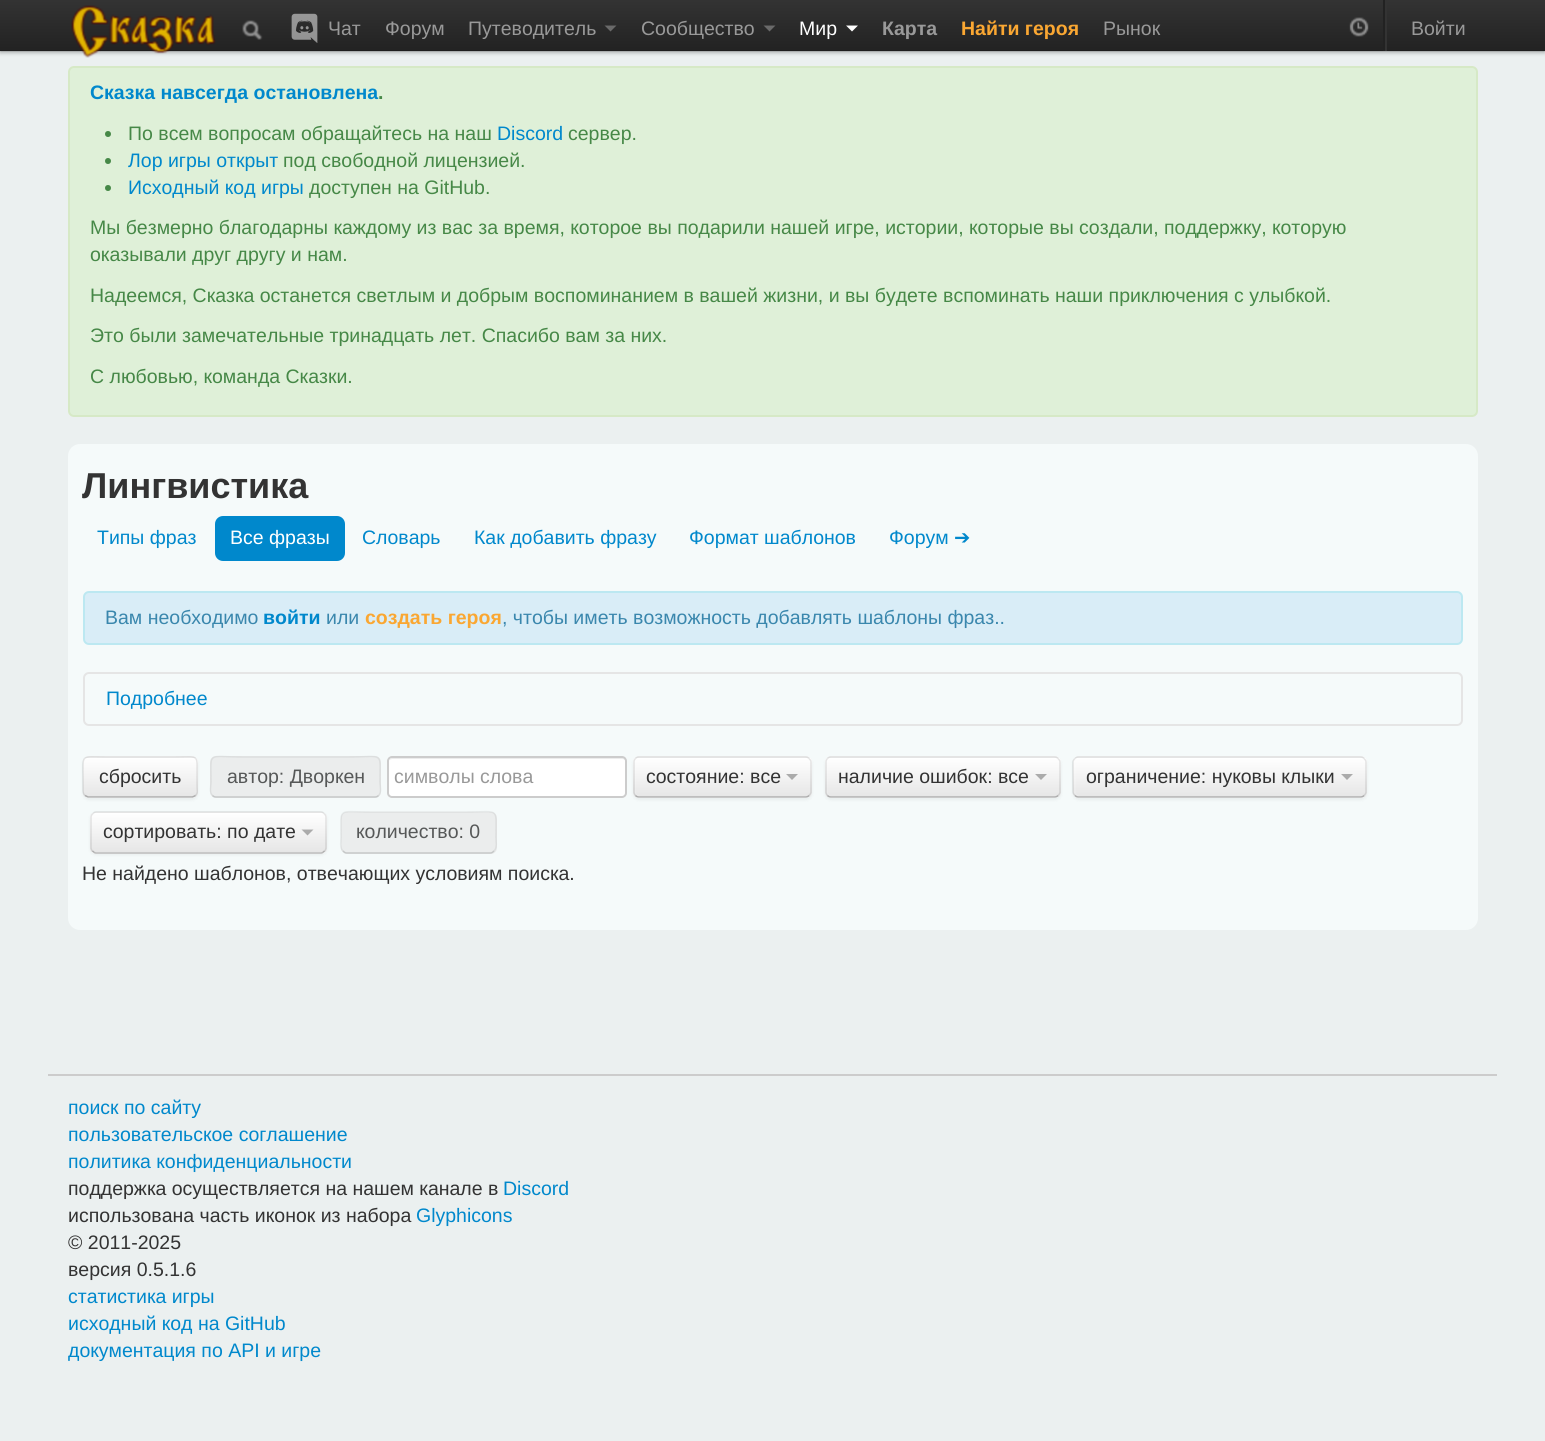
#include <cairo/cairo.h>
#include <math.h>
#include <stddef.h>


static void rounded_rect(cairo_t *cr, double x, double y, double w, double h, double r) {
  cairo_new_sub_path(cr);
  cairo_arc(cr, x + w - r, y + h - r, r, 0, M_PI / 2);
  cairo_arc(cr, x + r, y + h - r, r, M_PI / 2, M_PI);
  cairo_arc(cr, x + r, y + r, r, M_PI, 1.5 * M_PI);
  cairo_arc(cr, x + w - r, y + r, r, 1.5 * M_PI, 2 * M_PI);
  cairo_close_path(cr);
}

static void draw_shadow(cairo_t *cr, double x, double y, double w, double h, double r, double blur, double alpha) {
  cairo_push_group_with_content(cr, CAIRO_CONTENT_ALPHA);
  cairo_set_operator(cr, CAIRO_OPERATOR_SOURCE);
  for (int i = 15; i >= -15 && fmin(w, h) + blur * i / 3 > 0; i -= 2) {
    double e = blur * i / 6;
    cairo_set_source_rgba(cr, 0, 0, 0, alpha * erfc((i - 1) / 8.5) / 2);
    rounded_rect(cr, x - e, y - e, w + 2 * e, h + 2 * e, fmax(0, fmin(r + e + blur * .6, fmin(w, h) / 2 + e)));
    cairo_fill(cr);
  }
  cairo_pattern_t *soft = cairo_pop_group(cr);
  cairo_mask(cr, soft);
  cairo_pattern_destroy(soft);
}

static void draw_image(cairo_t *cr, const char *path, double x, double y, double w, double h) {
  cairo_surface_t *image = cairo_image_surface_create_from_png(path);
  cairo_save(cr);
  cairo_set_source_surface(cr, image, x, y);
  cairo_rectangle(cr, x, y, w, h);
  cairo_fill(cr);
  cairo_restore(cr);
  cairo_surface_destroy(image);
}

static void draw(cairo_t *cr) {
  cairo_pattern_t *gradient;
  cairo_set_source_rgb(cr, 235 / 255.0, 240 / 255.0, 240 / 255.0);
  cairo_paint(cr);
  cairo_set_source_rgb(cr, 0, 0, 0);
  draw_shadow(cr, 0, 2, 1545, 51, 0, 2, 0.25);
  gradient = cairo_pattern_create_linear(773, 0, 773, 51);
  cairo_pattern_add_color_stop_rgba(gradient, 0, 51 / 255.0, 51 / 255.0, 51 / 255.0, 1);
  cairo_pattern_add_color_stop_rgba(gradient, 1, 34 / 255.0, 34 / 255.0, 34 / 255.0, 1);
  cairo_set_source(cr, gradient);
  cairo_pattern_destroy(gradient);
  cairo_rectangle(cr, 0, 0, 1545, 51);
  cairo_fill(cr);
  cairo_set_source_rgba(cr, 0, 0, 0, 0.1);
  cairo_rectangle(cr, 0, 50, 1545, 2);
  cairo_fill(cr);
  draw_image(cr, "images/1.png", 71, 5, 145, 53);
  draw_image(cr, "images/2.png", 242, 20, 21, 20);
  draw_image(cr, "images/3.png", 291, 13, 27, 30);
  cairo_set_source_rgb(cr, 106 / 255.0, 106 / 255.0, 106 / 255.0);
  cairo_new_path(cr);
  cairo_move_to(cr, 604.5, 25.5);
  cairo_line_to(cr, 616.5, 25.5);
  cairo_line_to(cr, 610.5, 31.5);
  cairo_close_path(cr);
  cairo_fill(cr);
  cairo_new_path(cr);
  cairo_move_to(cr, 763.5, 25.5);
  cairo_line_to(cr, 775.5, 25.5);
  cairo_line_to(cr, 769.5, 31.5);
  cairo_close_path(cr);
  cairo_fill(cr);
  cairo_set_source_rgb(cr, 1, 1, 1);
  cairo_new_path(cr);
  cairo_move_to(cr, 846, 25.5);
  cairo_line_to(cr, 858, 25.5);
  cairo_line_to(cr, 852, 31.5);
  cairo_close_path(cr);
  cairo_fill(cr);
  draw_image(cr, "images/4.png", 1349, 17, 20, 20);
  cairo_set_source_rgb(cr, 34 / 255.0, 34 / 255.0, 34 / 255.0);
  cairo_rectangle(cr, 1383, 0, 2, 51);
  cairo_fill(cr);
  cairo_set_source_rgb(cr, 51 / 255.0, 51 / 255.0, 51 / 255.0);
  cairo_rectangle(cr, 1385, 0, 2, 51);
  cairo_fill(cr);
  cairo_set_source_rgb(cr, 223 / 255.0, 240 / 255.0, 216 / 255.0);
  rounded_rect(cr, 69, 67, 1408, 349, 5);
  cairo_fill_preserve(cr);
  cairo_set_source_rgb(cr, 214 / 255.0, 233 / 255.0, 198 / 255.0);
  cairo_stroke(cr);
  cairo_set_source_rgb(cr, 70 / 255.0, 136 / 255.0, 71 / 255.0);
  cairo_arc(cr, 108, 134, 3, 0, 2 * M_PI);
  cairo_fill(cr);
  cairo_arc(cr, 108, 161, 3, 0, 2 * M_PI);
  cairo_fill(cr);
  cairo_arc(cr, 108, 188, 3, 0, 2 * M_PI);
  cairo_fill(cr);
  cairo_set_source_rgb(cr, 245 / 255.0, 250 / 255.0, 250 / 255.0);
  rounded_rect(cr, 68, 444, 1410, 486, 12);
  cairo_fill(cr);
  cairo_set_source_rgb(cr, 0, 136 / 255.0, 204 / 255.0);
  rounded_rect(cr, 215, 516, 130, 45, 8);
  cairo_fill(cr);
  cairo_set_source_rgb(cr, 217 / 255.0, 237 / 255.0, 247 / 255.0);
  rounded_rect(cr, 84, 592, 1378, 52, 5);
  cairo_fill_preserve(cr);
  cairo_set_source_rgb(cr, 188 / 255.0, 232 / 255.0, 241 / 255.0);
  cairo_stroke(cr);
  rounded_rect(cr, 84, 673, 1378, 52, 5);
  cairo_set_source_rgb(cr, 229 / 255.0, 229 / 255.0, 229 / 255.0);
  cairo_stroke(cr);
  cairo_set_source_rgb(cr, 0, 0, 0);
  draw_shadow(cr, 83, 758, 115, 42, 6, 1.5, 0.05);
  cairo_set_source_rgb(cr, 245 / 255.0, 245 / 255.0, 245 / 255.0);
  rounded_rect(cr, 83, 756, 115, 42, 6);
  cairo_fill(cr);
  cairo_save(cr);
  rounded_rect(cr, 83, 756, 115, 42, 6);
  cairo_clip(cr);
  gradient = cairo_pattern_create_linear(140, 758, 140, 797);
  cairo_pattern_add_color_stop_rgba(gradient, 0, 1, 1, 1, 1);
  cairo_pattern_add_color_stop_rgba(gradient, 1, 230 / 255.0, 230 / 255.0, 230 / 255.0, 1);
  cairo_set_source(cr, gradient);
  cairo_pattern_destroy(gradient);
  cairo_rectangle(cr, 83, 758, 115, 39);
  cairo_fill(cr);
  cairo_restore(cr);
  cairo_set_source_rgba(cr, 1, 1, 1, 0.2);
  cairo_new_path(cr);
  cairo_move_to(cr, 88, 759);
  cairo_line_to(cr, 175, 759);
  cairo_curve_to(cr, 196, 759, 196, 755, 196, 774);
  cairo_line_to(cr, 196, 795);
  cairo_curve_to(cr, 197, 794, 197, 793, 197, 792);
  cairo_line_to(cr, 197, 763);
  cairo_curve_to(cr, 197, 760, 195, 758, 192, 758);
  cairo_line_to(cr, 89, 758);
  cairo_curve_to(cr, 86, 758, 84, 760, 84, 763);
  cairo_line_to(cr, 84, 764);
  cairo_curve_to(cr, 84, 761, 86, 759, 88, 759);
  cairo_close_path(cr);
  cairo_fill(cr);
  cairo_new_path(cr);
  cairo_move_to(cr, 195.5, 795.5);
  cairo_line_to(cr, 192.5, 797);
  cairo_line_to(cr, 88, 797);
  cairo_line_to(cr, 85, 795.5);
  cairo_set_source_rgba(cr, 0, 0, 0, 0.25);
  cairo_set_line_width(cr, 1.5);
  cairo_stroke(cr);
  cairo_new_path(cr);
  cairo_move_to(cr, 85, 795.5);
  cairo_curve_to(cr, 82.5, 793.5, 83, 790, 83, 787);
  cairo_line_to(cr, 83, 777);
  cairo_curve_to(cr, 83, 753.5, 80.5, 757, 106, 757);
  cairo_line_to(cr, 175, 757);
  cairo_curve_to(cr, 200, 757, 197, 753.5, 197, 777);
  cairo_line_to(cr, 197, 787);
  cairo_curve_to(cr, 197, 790, 198, 793.5, 195.5, 795.5);
  cairo_set_source_rgba(cr, 0, 0, 0, 0.1);
  cairo_stroke(cr);
  cairo_set_source_rgb(cr, 235 / 255.0, 237 / 255.0, 237 / 255.0);
  rounded_rect(cr, 210, 756, 171, 42, 6);
  cairo_fill(cr);
  cairo_new_path(cr);
  cairo_move_to(cr, 378.5, 795.5);
  cairo_curve_to(cr, 377.5, 796.5, 376.5, 797, 375, 797);
  cairo_line_to(cr, 216, 797);
  cairo_curve_to(cr, 214.5, 797, 213.5, 796.5, 212.5, 795.5);
  cairo_set_source_rgba(cr, 86 / 255.0, 88 / 255.0, 88 / 255.0, 0.25);
  cairo_stroke(cr);
  cairo_new_path(cr);
  cairo_move_to(cr, 212.5, 795.5);
  cairo_curve_to(cr, 209, 792.5, 211, 785.5, 211, 782);
  cairo_curve_to(cr, 211, 750.5, 206.5, 757, 242.5, 757);
  cairo_line_to(cr, 348.5, 757);
  cairo_curve_to(cr, 384.5, 757, 380, 750.5, 380, 782);
  cairo_curve_to(cr, 380, 785.5, 382, 792.5, 378.5, 795.5);
  cairo_set_source_rgba(cr, 86 / 255.0, 88 / 255.0, 88 / 255.0, 0.1);
  cairo_stroke(cr);
  cairo_set_source_rgb(cr, 1, 1, 1);
  rounded_rect(cr, 387, 756, 240, 42, 5);
  cairo_fill(cr);
  cairo_set_source_rgb(cr, 236 / 255.0, 236 / 255.0, 236 / 255.0);
  cairo_new_path(cr);
  cairo_move_to(cr, 392, 759);
  cairo_line_to(cr, 622, 759);
  cairo_curve_to(cr, 624, 759, 626, 760, 626, 762);
  cairo_line_to(cr, 626, 761);
  cairo_curve_to(cr, 626, 759, 625, 758, 623, 758);
  cairo_line_to(cr, 392, 758);
  cairo_curve_to(cr, 391, 758, 390, 759, 389, 760);
  cairo_close_path(cr);
  cairo_fill(cr);
  rounded_rect(cr, 388, 757, 238, 40, 4);
  cairo_set_source_rgb(cr, 204 / 255.0, 204 / 255.0, 204 / 255.0);
  cairo_set_line_width(cr, 2);
  cairo_stroke(cr);
  cairo_set_source_rgb(cr, 0, 0, 0);
  draw_shadow(cr, 633, 758, 179, 42, 6, 1.5, 0.05);
  cairo_set_source_rgb(cr, 245 / 255.0, 245 / 255.0, 245 / 255.0);
  rounded_rect(cr, 633, 756, 179, 42, 6);
  cairo_fill(cr);
  cairo_save(cr);
  rounded_rect(cr, 633, 756, 179, 42, 6);
  cairo_clip(cr);
  gradient = cairo_pattern_create_linear(722, 758, 722, 797);
  cairo_pattern_add_color_stop_rgba(gradient, 0, 1, 1, 1, 1);
  cairo_pattern_add_color_stop_rgba(gradient, 1, 230 / 255.0, 230 / 255.0, 230 / 255.0, 1);
  cairo_set_source(cr, gradient);
  cairo_pattern_destroy(gradient);
  cairo_rectangle(cr, 633, 758, 179, 39);
  cairo_fill(cr);
  cairo_restore(cr);
  cairo_set_source_rgba(cr, 1, 1, 1, 0.12);
  cairo_new_path(cr);
  cairo_move_to(cr, 640, 758);
  cairo_curve_to(cr, 637, 758, 635, 760, 635, 763);
  cairo_line_to(cr, 635, 792);
  cairo_curve_to(cr, 635, 795, 637, 797, 640, 797);
  cairo_line_to(cr, 805, 797);
  cairo_curve_to(cr, 806, 797, 807, 797, 808, 796);
  cairo_line_to(cr, 640, 796);
  cairo_curve_to(cr, 635, 796, 636, 790, 636, 787);
  cairo_line_to(cr, 636, 772);
  cairo_curve_to(cr, 636, 769, 634, 758, 640, 758);
  cairo_close_path(cr);
  cairo_fill(cr);
  cairo_new_path(cr);
  cairo_move_to(cr, 809, 795.5);
  cairo_curve_to(cr, 808, 796.5, 807, 797, 805.5, 797);
  cairo_line_to(cr, 639, 797);
  cairo_curve_to(cr, 637.5, 797, 636.5, 796.5, 635.5, 795.5);
  cairo_set_source_rgba(cr, 0, 0, 0, 0.25);
  cairo_set_line_width(cr, 1.5);
  cairo_stroke(cr);
  cairo_new_path(cr);
  cairo_move_to(cr, 635.5, 795.5);
  cairo_curve_to(cr, 634.5, 794.5, 634, 793.5, 634, 792);
  cairo_line_to(cr, 634, 762);
  cairo_curve_to(cr, 634, 760.5, 634.5, 759.5, 635.5, 758.5);
  cairo_curve_to(cr, 636.5, 757.5, 637.5, 757, 639, 757);
  cairo_line_to(cr, 805.5, 757);
  cairo_curve_to(cr, 807, 757, 808, 757.5, 809, 758.5);
  cairo_curve_to(cr, 810, 759.5, 811, 760.5, 811, 762);
  cairo_line_to(cr, 811, 792);
  cairo_curve_to(cr, 811, 793.5, 810, 794.5, 809, 795.5);
  cairo_set_source_rgba(cr, 0, 0, 0, 0.1);
  cairo_stroke(cr);
  cairo_set_source_rgba(cr, 0, 0, 0, 0.3);
  cairo_new_path(cr);
  cairo_move_to(cr, 786, 774);
  cairo_line_to(cr, 798, 774);
  cairo_line_to(cr, 792, 780);
  cairo_close_path(cr);
  cairo_fill(cr);
  cairo_set_source_rgb(cr, 0, 0, 0);
  draw_shadow(cr, 825, 758, 236, 42, 6, 1.5, 0.05);
  cairo_set_source_rgb(cr, 245 / 255.0, 245 / 255.0, 245 / 255.0);
  rounded_rect(cr, 825, 756, 236, 42, 6);
  cairo_fill(cr);
  cairo_save(cr);
  rounded_rect(cr, 825, 756, 236, 42, 6);
  cairo_clip(cr);
  gradient = cairo_pattern_create_linear(943, 758, 943, 797);
  cairo_pattern_add_color_stop_rgba(gradient, 0, 1, 1, 1, 1);
  cairo_pattern_add_color_stop_rgba(gradient, 1, 230 / 255.0, 230 / 255.0, 230 / 255.0, 1);
  cairo_set_source(cr, gradient);
  cairo_pattern_destroy(gradient);
  cairo_rectangle(cr, 825, 758, 236, 39);
  cairo_fill(cr);
  cairo_restore(cr);
  cairo_set_source_rgba(cr, 1, 1, 1, 0.12);
  cairo_new_path(cr);
  cairo_move_to(cr, 832, 758);
  cairo_curve_to(cr, 829, 758, 827, 760, 827, 763);
  cairo_line_to(cr, 827, 792);
  cairo_curve_to(cr, 827, 795, 829, 797, 832, 797);
  cairo_line_to(cr, 1054, 797);
  cairo_curve_to(cr, 1055, 797, 1056, 797, 1057, 796);
  cairo_line_to(cr, 832, 796);
  cairo_curve_to(cr, 827, 796, 828, 790, 828, 787);
  cairo_line_to(cr, 828, 772);
  cairo_curve_to(cr, 828, 769, 826, 758, 832, 758);
  cairo_close_path(cr);
  cairo_fill(cr);
  cairo_new_path(cr);
  cairo_move_to(cr, 1058, 795.5);
  cairo_curve_to(cr, 1057, 796.5, 1056, 797, 1054.5, 797);
  cairo_line_to(cr, 831, 797);
  cairo_curve_to(cr, 829.5, 797, 828.5, 796.5, 827.5, 795.5);
  cairo_set_source_rgba(cr, 0, 0, 0, 0.25);
  cairo_stroke(cr);
  cairo_new_path(cr);
  cairo_move_to(cr, 827.5, 795.5);
  cairo_curve_to(cr, 826.5, 794.5, 826, 793.5, 826, 792);
  cairo_line_to(cr, 826, 762);
  cairo_curve_to(cr, 826, 760.5, 826.5, 759.5, 827.5, 758.5);
  cairo_curve_to(cr, 828.5, 757.5, 829.5, 757, 831, 757);
  cairo_line_to(cr, 1054.5, 757);
  cairo_curve_to(cr, 1056, 757, 1057, 757.5, 1058, 758.5);
  cairo_curve_to(cr, 1059, 759.5, 1060, 760.5, 1060, 762);
  cairo_line_to(cr, 1060, 792);
  cairo_curve_to(cr, 1060, 793.5, 1059, 794.5, 1058, 795.5);
  cairo_set_source_rgba(cr, 0, 0, 0, 0.1);
  cairo_stroke(cr);
  cairo_set_source_rgba(cr, 0, 0, 0, 0.3);
  cairo_new_path(cr);
  cairo_move_to(cr, 1035, 774);
  cairo_line_to(cr, 1047, 774);
  cairo_line_to(cr, 1041, 780);
  cairo_close_path(cr);
  cairo_fill(cr);
  cairo_set_source_rgb(cr, 0, 0, 0);
  draw_shadow(cr, 1073, 758, 294, 42, 6, 1.5, 0.05);
  cairo_set_source_rgb(cr, 245 / 255.0, 245 / 255.0, 245 / 255.0);
  rounded_rect(cr, 1073, 756, 294, 42, 6);
  cairo_fill(cr);
  cairo_save(cr);
  rounded_rect(cr, 1073, 756, 294, 42, 6);
  cairo_clip(cr);
  gradient = cairo_pattern_create_linear(1220, 758, 1220, 797);
  cairo_pattern_add_color_stop_rgba(gradient, 0, 1, 1, 1, 1);
  cairo_pattern_add_color_stop_rgba(gradient, 1, 230 / 255.0, 230 / 255.0, 230 / 255.0, 1);
  cairo_set_source(cr, gradient);
  cairo_pattern_destroy(gradient);
  cairo_rectangle(cr, 1073, 758, 294, 39);
  cairo_fill(cr);
  cairo_restore(cr);
  cairo_set_source_rgba(cr, 1, 1, 1, 0.12);
  cairo_new_path(cr);
  cairo_move_to(cr, 1079, 758);
  cairo_curve_to(cr, 1076, 758, 1074, 760, 1074, 763);
  cairo_line_to(cr, 1074, 792);
  cairo_curve_to(cr, 1074, 795, 1076, 797, 1079, 797);
  cairo_line_to(cr, 1360, 797);
  cairo_curve_to(cr, 1361, 797, 1362, 797, 1363, 796);
  cairo_line_to(cr, 1080, 796);
  cairo_curve_to(cr, 1074, 796, 1076, 785, 1076, 782);
  cairo_line_to(cr, 1076, 767);
  cairo_curve_to(cr, 1076, 764, 1075, 758, 1080, 758);
  cairo_close_path(cr);
  cairo_fill(cr);
  cairo_new_path(cr);
  cairo_move_to(cr, 1364, 795.5);
  cairo_curve_to(cr, 1363, 796.5, 1362, 797, 1360.5, 797);
  cairo_line_to(cr, 1078.5, 797);
  cairo_curve_to(cr, 1077, 797, 1076, 796.5, 1075, 795.5);
  cairo_set_source_rgba(cr, 0, 0, 0, 0.25);
  cairo_stroke(cr);
  cairo_new_path(cr);
  cairo_move_to(cr, 1075, 795.5);
  cairo_curve_to(cr, 1074, 794.5, 1073, 793.5, 1073, 792);
  cairo_line_to(cr, 1073, 762);
  cairo_curve_to(cr, 1073, 760.5, 1074, 759.5, 1075, 758.5);
  cairo_curve_to(cr, 1076, 757.5, 1077, 757, 1078.5, 757);
  cairo_line_to(cr, 1360.5, 757);
  cairo_curve_to(cr, 1362, 757, 1363, 757.5, 1364, 758.5);
  cairo_curve_to(cr, 1365, 759.5, 1366, 760.5, 1366, 762);
  cairo_line_to(cr, 1366, 792);
  cairo_curve_to(cr, 1366, 793.5, 1365, 794.5, 1364, 795.5);
  cairo_set_source_rgba(cr, 0, 0, 0, 0.1);
  cairo_stroke(cr);
  cairo_set_source_rgba(cr, 0, 0, 0, 0.3);
  cairo_new_path(cr);
  cairo_move_to(cr, 1341, 774);
  cairo_line_to(cr, 1353, 774);
  cairo_line_to(cr, 1347, 780);
  cairo_close_path(cr);
  cairo_fill(cr);
  cairo_set_source_rgb(cr, 0, 0, 0);
  draw_shadow(cr, 90, 813, 237, 42, 6, 1.5, 0.05);
  cairo_set_source_rgb(cr, 245 / 255.0, 245 / 255.0, 245 / 255.0);
  rounded_rect(cr, 90, 812, 237, 42, 6);
  cairo_fill(cr);
  cairo_save(cr);
  rounded_rect(cr, 90, 812, 237, 42, 6);
  cairo_clip(cr);
  gradient = cairo_pattern_create_linear(209, 813, 209, 852);
  cairo_pattern_add_color_stop_rgba(gradient, 0, 1, 1, 1, 1);
  cairo_pattern_add_color_stop_rgba(gradient, 1, 230 / 255.0, 230 / 255.0, 230 / 255.0, 1);
  cairo_set_source(cr, gradient);
  cairo_pattern_destroy(gradient);
  cairo_rectangle(cr, 90, 813, 237, 39);
  cairo_fill(cr);
  cairo_restore(cr);
  cairo_new_path(cr);
  cairo_move_to(cr, 324.5, 851);
  cairo_curve_to(cr, 323.5, 852, 322.5, 853, 321, 853);
  cairo_line_to(cr, 96, 853);
  cairo_curve_to(cr, 94.5, 853, 93.5, 852, 92.5, 851);
  cairo_set_source_rgba(cr, 0, 0, 0, 0.25);
  cairo_stroke(cr);
  cairo_new_path(cr);
  cairo_move_to(cr, 92.5, 851);
  cairo_curve_to(cr, 91.5, 850, 91, 849, 91, 847.5);
  cairo_line_to(cr, 91, 817.5);
  cairo_curve_to(cr, 91, 816, 91.5, 815, 92.5, 814);
  cairo_curve_to(cr, 93.5, 813, 94.5, 812, 96, 812);
  cairo_line_to(cr, 321, 812);
  cairo_curve_to(cr, 322.5, 812, 323.5, 813, 324.5, 814);
  cairo_curve_to(cr, 325.5, 815, 326, 816, 326, 817.5);
  cairo_line_to(cr, 326, 847.5);
  cairo_curve_to(cr, 326, 849, 325.5, 850, 324.5, 851);
  cairo_set_source_rgba(cr, 0, 0, 0, 0.1);
  cairo_stroke(cr);
  cairo_set_source_rgba(cr, 0, 0, 0, 0.3);
  cairo_new_path(cr);
  cairo_move_to(cr, 301.5, 829.5);
  cairo_line_to(cr, 313.5, 829.5);
  cairo_line_to(cr, 307.5, 835.5);
  cairo_close_path(cr);
  cairo_fill(cr);
  cairo_set_source_rgb(cr, 235 / 255.0, 237 / 255.0, 237 / 255.0);
  rounded_rect(cr, 341, 812, 156, 42, 6);
  cairo_fill(cr);
  cairo_new_path(cr);
  cairo_move_to(cr, 494, 851);
  cairo_curve_to(cr, 493, 852, 492, 853, 490.5, 853);
  cairo_line_to(cr, 346.5, 853);
  cairo_curve_to(cr, 345, 853, 344, 852, 343, 851);
  cairo_set_source_rgba(cr, 86 / 255.0, 88 / 255.0, 88 / 255.0, 0.25);
  cairo_stroke(cr);
  cairo_new_path(cr);
  cairo_move_to(cr, 343, 851);
  cairo_curve_to(cr, 339.5, 848, 341, 841, 341, 837.5);
  cairo_curve_to(cr, 341, 806.5, 337, 812, 370.5, 812);
  cairo_line_to(cr, 466.5, 812);
  cairo_curve_to(cr, 500, 812, 496, 806.5, 496, 837.5);
  cairo_curve_to(cr, 496, 841, 497.5, 848, 494, 851);
  cairo_set_source_rgba(cr, 86 / 255.0, 88 / 255.0, 88 / 255.0, 0.1);
  cairo_stroke(cr);
  cairo_set_source_rgb(cr, 204 / 255.0, 204 / 255.0, 204 / 255.0);
  cairo_rectangle(cr, 48, 1074, 1449, 2);
  cairo_fill(cr);
  cairo_select_font_face(cr, "Liberation Sans", CAIRO_FONT_SLANT_NORMAL, CAIRO_FONT_WEIGHT_NORMAL);
  cairo_set_font_size(cr, 19.5);
  cairo_set_source_rgb(cr, 153 / 255.0, 153 / 255.0, 153 / 255.0);
  cairo_move_to(cr, 328, 35);
  cairo_show_text(cr, "Чат");
  cairo_move_to(cr, 385, 35);
  cairo_show_text(cr, "Форум");
  cairo_move_to(cr, 468, 35);
  cairo_show_text(cr, "Путеводитель");
  cairo_move_to(cr, 641, 35);
  cairo_show_text(cr, "Сообщество");
  cairo_set_source_rgb(cr, 1, 1, 1);
  cairo_move_to(cr, 799, 35);
  cairo_show_text(cr, "Мир");
  cairo_select_font_face(cr, "Liberation Sans", CAIRO_FONT_SLANT_NORMAL, CAIRO_FONT_WEIGHT_BOLD);
  cairo_set_source_rgb(cr, 153 / 255.0, 153 / 255.0, 153 / 255.0);
  cairo_move_to(cr, 882, 35);
  cairo_show_text(cr, "Карта");
  cairo_set_source_rgb(cr, 250 / 255.0, 167 / 255.0, 50 / 255.0);
  cairo_move_to(cr, 961, 35);
  cairo_show_text(cr, "Найти героя");
  cairo_select_font_face(cr, "Liberation Sans", CAIRO_FONT_SLANT_NORMAL, CAIRO_FONT_WEIGHT_NORMAL);
  cairo_set_source_rgb(cr, 153 / 255.0, 153 / 255.0, 153 / 255.0);
  cairo_move_to(cr, 1103, 35);
  cairo_show_text(cr, "Рынок");
  cairo_move_to(cr, 1411, 35);
  cairo_show_text(cr, "Войти");
  cairo_select_font_face(cr, "Liberation Sans", CAIRO_FONT_SLANT_NORMAL, CAIRO_FONT_WEIGHT_BOLD);
  cairo_set_source_rgb(cr, 0, 136 / 255.0, 204 / 255.0);
  cairo_move_to(cr, 90, 99);
  cairo_show_text(cr, "Сказка навсегда остановлена");
  cairo_set_source_rgb(cr, 70 / 255.0, 136 / 255.0, 71 / 255.0);
  cairo_move_to(cr, 378, 99);
  cairo_show_text(cr, ".");
  cairo_select_font_face(cr, "Liberation Sans", CAIRO_FONT_SLANT_NORMAL, CAIRO_FONT_WEIGHT_NORMAL);
  cairo_move_to(cr, 128, 140);
  cairo_show_text(cr, "По всем вопросам обращайтесь на наш");
  cairo_set_source_rgb(cr, 0, 136 / 255.0, 204 / 255.0);
  cairo_move_to(cr, 497, 140);
  cairo_show_text(cr, "Discord");
  cairo_set_source_rgb(cr, 70 / 255.0, 136 / 255.0, 71 / 255.0);
  cairo_move_to(cr, 568, 140);
  cairo_show_text(cr, "сервер.");
  cairo_set_source_rgb(cr, 0, 136 / 255.0, 204 / 255.0);
  cairo_move_to(cr, 128, 167);
  cairo_show_text(cr, "Лор игры открыт");
  cairo_set_source_rgb(cr, 70 / 255.0, 136 / 255.0, 71 / 255.0);
  cairo_move_to(cr, 283, 167);
  cairo_show_text(cr, "под свободной лицензией.");
  cairo_set_source_rgb(cr, 0, 136 / 255.0, 204 / 255.0);
  cairo_move_to(cr, 128, 194);
  cairo_show_text(cr, "Исходный код игры");
  cairo_set_source_rgb(cr, 70 / 255.0, 136 / 255.0, 71 / 255.0);
  cairo_move_to(cr, 309, 194);
  cairo_show_text(cr, "доступен на GitHub.");
  cairo_move_to(cr, 90, 234);
  cairo_show_text(cr, "Мы безмерно благодарны каждому из вас за время, которое вы подарили нашей игре, истории, которые вы создали, поддержку, которую");
  cairo_move_to(cr, 90, 261);
  cairo_show_text(cr, "оказывали друг другу и нам.");
  cairo_move_to(cr, 90, 302);
  cairo_show_text(cr, "Надеемся, Сказка останется светлым и добрым воспоминанием в вашей жизни, и вы будете вспоминать наши приключения с улыбкой.");
  cairo_move_to(cr, 90, 342);
  cairo_show_text(cr, "Это были замечательные тринадцать лет. Спасибо вам за них.");
  cairo_move_to(cr, 90, 383);
  cairo_show_text(cr, "С любовью, команда Сказки.");
  cairo_select_font_face(cr, "Liberation Sans", CAIRO_FONT_SLANT_NORMAL, CAIRO_FONT_WEIGHT_BOLD);
  cairo_set_font_size(cr, 36);
  cairo_set_source_rgb(cr, 51 / 255.0, 51 / 255.0, 51 / 255.0);
  cairo_move_to(cr, 82, 498);
  cairo_show_text(cr, "Лингвистика");
  cairo_select_font_face(cr, "Liberation Sans", CAIRO_FONT_SLANT_NORMAL, CAIRO_FONT_WEIGHT_NORMAL);
  cairo_set_font_size(cr, 19.5);
  cairo_set_source_rgb(cr, 0, 136 / 255.0, 204 / 255.0);
  cairo_move_to(cr, 97, 544);
  cairo_show_text(cr, "Типы фраз");
  cairo_set_source_rgb(cr, 1, 1, 1);
  cairo_move_to(cr, 230, 544);
  cairo_show_text(cr, "Все фразы");
  cairo_set_source_rgb(cr, 0, 136 / 255.0, 204 / 255.0);
  cairo_move_to(cr, 362, 544);
  cairo_show_text(cr, "Словарь");
  cairo_move_to(cr, 474, 544);
  cairo_show_text(cr, "Как добавить фразу");
  cairo_move_to(cr, 689, 544);
  cairo_show_text(cr, "Формат шаблонов");
  cairo_move_to(cr, 889, 544);
  cairo_show_text(cr, "Форум");
  cairo_select_font_face(cr, "DejaVu Sans", CAIRO_FONT_SLANT_NORMAL, CAIRO_FONT_WEIGHT_NORMAL);
  cairo_move_to(cr, 954, 544);
  cairo_show_text(cr, "➔");
  cairo_select_font_face(cr, "Liberation Sans", CAIRO_FONT_SLANT_NORMAL, CAIRO_FONT_WEIGHT_NORMAL);
  cairo_set_source_rgb(cr, 58 / 255.0, 135 / 255.0, 173 / 255.0);
  cairo_move_to(cr, 105, 624);
  cairo_show_text(cr, "Вам необходимо");
  cairo_select_font_face(cr, "Liberation Sans", CAIRO_FONT_SLANT_NORMAL, CAIRO_FONT_WEIGHT_BOLD);
  cairo_set_source_rgb(cr, 0, 136 / 255.0, 204 / 255.0);
  cairo_move_to(cr, 263, 624);
  cairo_show_text(cr, "войти");
  cairo_select_font_face(cr, "Liberation Sans", CAIRO_FONT_SLANT_NORMAL, CAIRO_FONT_WEIGHT_NORMAL);
  cairo_set_source_rgb(cr, 58 / 255.0, 135 / 255.0, 173 / 255.0);
  cairo_move_to(cr, 326, 624);
  cairo_show_text(cr, "или");
  cairo_select_font_face(cr, "Liberation Sans", CAIRO_FONT_SLANT_NORMAL, CAIRO_FONT_WEIGHT_BOLD);
  cairo_set_source_rgb(cr, 250 / 255.0, 167 / 255.0, 50 / 255.0);
  cairo_move_to(cr, 365, 624);
  cairo_show_text(cr, "создать героя");
  cairo_select_font_face(cr, "Liberation Sans", CAIRO_FONT_SLANT_NORMAL, CAIRO_FONT_WEIGHT_NORMAL);
  cairo_set_source_rgb(cr, 58 / 255.0, 135 / 255.0, 173 / 255.0);
  cairo_move_to(cr, 502, 624);
  cairo_show_text(cr, ", чтобы иметь возможность добавлять шаблоны фраз..");
  cairo_set_source_rgb(cr, 0, 136 / 255.0, 204 / 255.0);
  cairo_move_to(cr, 106, 705);
  cairo_show_text(cr, "Подробнее");
  cairo_set_source_rgb(cr, 51 / 255.0, 51 / 255.0, 51 / 255.0);
  cairo_move_to(cr, 99, 783);
  cairo_show_text(cr, "сбросить");
  cairo_set_source_rgb(cr, 86 / 255.0, 88 / 255.0, 88 / 255.0);
  cairo_move_to(cr, 227, 783);
  cairo_show_text(cr, "автор: Дворкен");
  cairo_set_source_rgb(cr, 153 / 255.0, 153 / 255.0, 153 / 255.0);
  cairo_move_to(cr, 394, 783);
  cairo_show_text(cr, "символы слова");
  cairo_set_source_rgb(cr, 51 / 255.0, 51 / 255.0, 51 / 255.0);
  cairo_move_to(cr, 646, 783);
  cairo_show_text(cr, "состояние: все");
  cairo_move_to(cr, 838, 783);
  cairo_show_text(cr, "наличие ошибок: все");
  cairo_move_to(cr, 1086, 783);
  cairo_show_text(cr, "ограничение: нуковы клыки");
  cairo_move_to(cr, 103, 838);
  cairo_show_text(cr, "сортировать: по дате");
  cairo_set_source_rgb(cr, 86 / 255.0, 88 / 255.0, 88 / 255.0);
  cairo_move_to(cr, 356, 838);
  cairo_show_text(cr, "количество: 0");
  cairo_set_source_rgb(cr, 51 / 255.0, 51 / 255.0, 51 / 255.0);
  cairo_move_to(cr, 82, 880);
  cairo_show_text(cr, "Не найдено шаблонов, отвечающих условиям поиска.");
  cairo_set_source_rgb(cr, 0, 136 / 255.0, 204 / 255.0);
  cairo_move_to(cr, 68, 1114);
  cairo_show_text(cr, "поиск по сайту");
  cairo_move_to(cr, 68, 1141);
  cairo_show_text(cr, "пользовательское соглашение");
  cairo_move_to(cr, 68, 1168);
  cairo_show_text(cr, "политика конфиденциальности");
  cairo_set_source_rgb(cr, 51 / 255.0, 51 / 255.0, 51 / 255.0);
  cairo_move_to(cr, 68, 1195);
  cairo_show_text(cr, "поддержка осуществляется на нашем канале в");
  cairo_set_source_rgb(cr, 0, 136 / 255.0, 204 / 255.0);
  cairo_move_to(cr, 503, 1195);
  cairo_show_text(cr, "Discord");
  cairo_set_source_rgb(cr, 51 / 255.0, 51 / 255.0, 51 / 255.0);
  cairo_move_to(cr, 68, 1222);
  cairo_show_text(cr, "использована часть иконок из набора");
  cairo_set_source_rgb(cr, 0, 136 / 255.0, 204 / 255.0);
  cairo_move_to(cr, 416, 1222);
  cairo_show_text(cr, "Glyphicons");
  cairo_set_source_rgb(cr, 51 / 255.0, 51 / 255.0, 51 / 255.0);
  cairo_move_to(cr, 68, 1249);
  cairo_show_text(cr, "© 2011-2025");
  cairo_move_to(cr, 68, 1276);
  cairo_show_text(cr, "версия 0.5.1.6");
  cairo_set_source_rgb(cr, 0, 136 / 255.0, 204 / 255.0);
  cairo_move_to(cr, 68, 1303);
  cairo_show_text(cr, "статистика игры");
  cairo_move_to(cr, 68, 1330);
  cairo_show_text(cr, "исходный код на GitHub");
  cairo_move_to(cr, 68, 1357);
  cairo_show_text(cr, "документация по API и игре");
}

int main(void) {
  cairo_surface_t *surface = cairo_image_surface_create(CAIRO_FORMAT_RGB24, 1545, 1441);
  cairo_t *cr = cairo_create(surface);
  cairo_font_options_t *options = cairo_font_options_create();
  cairo_font_options_set_hint_metrics(options, CAIRO_HINT_METRICS_OFF);
  cairo_font_options_set_hint_style(options, CAIRO_HINT_STYLE_NONE);
  cairo_set_font_options(cr, options);
  cairo_set_miter_limit(cr, 4);
  draw(cr);
  cairo_surface_write_to_png(surface, "out.png");
  cairo_font_options_destroy(options);
  cairo_destroy(cr);
  cairo_surface_destroy(surface);
  return 0;
}
